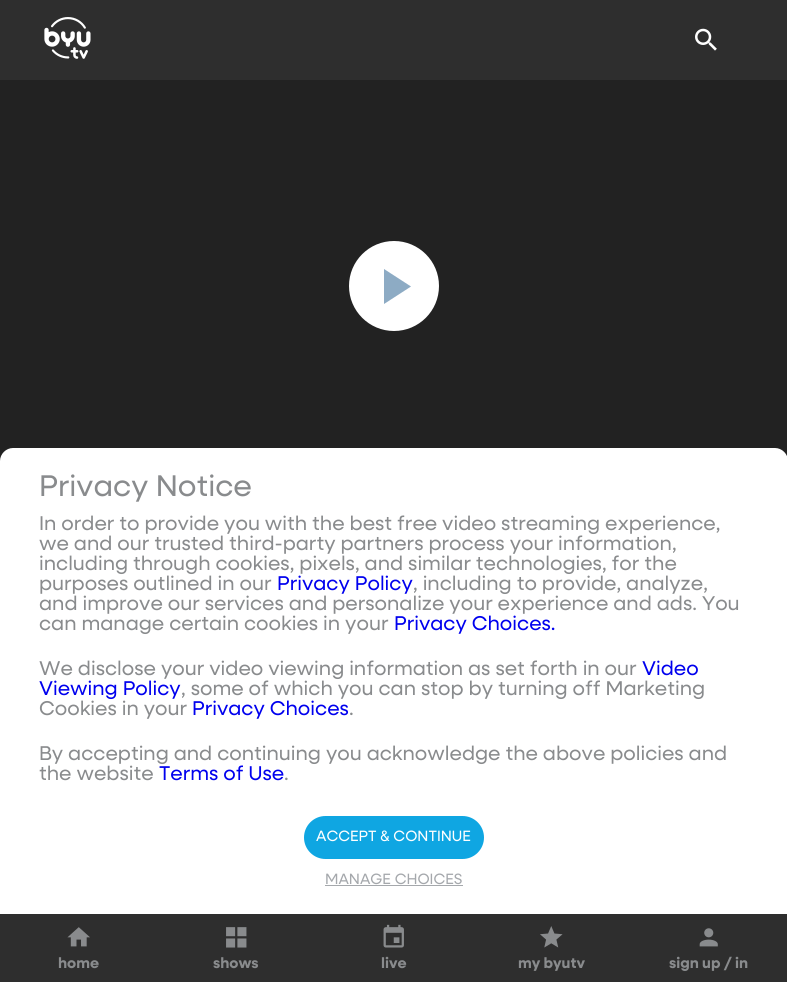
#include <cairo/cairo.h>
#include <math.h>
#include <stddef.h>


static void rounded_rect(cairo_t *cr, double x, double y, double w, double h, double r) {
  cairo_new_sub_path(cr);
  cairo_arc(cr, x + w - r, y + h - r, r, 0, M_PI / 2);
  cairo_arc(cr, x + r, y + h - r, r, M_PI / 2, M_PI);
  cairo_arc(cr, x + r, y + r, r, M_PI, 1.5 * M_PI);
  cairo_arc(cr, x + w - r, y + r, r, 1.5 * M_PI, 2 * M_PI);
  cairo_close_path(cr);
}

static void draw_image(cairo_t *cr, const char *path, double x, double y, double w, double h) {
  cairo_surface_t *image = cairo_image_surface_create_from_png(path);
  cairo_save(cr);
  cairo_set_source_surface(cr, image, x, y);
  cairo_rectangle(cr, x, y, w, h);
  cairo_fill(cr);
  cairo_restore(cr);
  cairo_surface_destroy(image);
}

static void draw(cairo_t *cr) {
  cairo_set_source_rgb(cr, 34 / 255.0, 34 / 255.0, 34 / 255.0);
  cairo_paint(cr);
  cairo_set_source_rgb(cr, 46 / 255.0, 46 / 255.0, 46 / 255.0);
  cairo_rectangle(cr, 0, 0, 787, 80);
  cairo_fill(cr);
  draw_image(cr, "images/1.png", 44, 17, 47, 42);
  draw_image(cr, "images/2.png", 695, 28, 22, 23);
  cairo_set_source_rgb(cr, 1, 1, 1);
  cairo_arc(cr, 394, 286, 43.5, 0, 2 * M_PI);
  cairo_fill_preserve(cr);
  cairo_set_line_width(cr, 3);
  cairo_stroke(cr);
  cairo_set_source_rgb(cr, 141 / 255.0, 171 / 255.0, 196 / 255.0);
  cairo_new_path(cr);
  cairo_move_to(cr, 384, 269);
  cairo_line_to(cr, 384, 304);
  cairo_line_to(cr, 411, 286.5);
  cairo_close_path(cr);
  cairo_fill(cr);
  cairo_set_source_rgb(cr, 1, 1, 1);
  cairo_new_path(cr);
  cairo_move_to(cr, 13, 448);
  cairo_line_to(cr, 775, 448);
  cairo_curve_to(cr, 782, 448, 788, 454, 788, 461);
  cairo_line_to(cr, 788, 914);
  cairo_line_to(cr, 0, 914);
  cairo_line_to(cr, 0, 461);
  cairo_curve_to(cr, 0, 454, 6, 448, 13, 448);
  cairo_close_path(cr);
  cairo_fill(cr);
  cairo_set_source_rgb(cr, 15 / 255.0, 166 / 255.0, 226 / 255.0);
  rounded_rect(cr, 304, 816, 180, 43, 21.5);
  cairo_fill(cr);
  cairo_set_source_rgb(cr, 165 / 255.0, 168 / 255.0, 172 / 255.0);
  cairo_rectangle(cr, 325, 885, 138, 1);
  cairo_fill(cr);
  cairo_set_source_rgb(cr, 46 / 255.0, 46 / 255.0, 46 / 255.0);
  cairo_rectangle(cr, 0, 914, 787, 68);
  cairo_fill(cr);
  draw_image(cr, "images/3.png", 67, 927, 23, 20);
  draw_image(cr, "images/4.png", 226, 927, 21, 21);
  draw_image(cr, "images/5.png", 383, 924, 21, 24);
  draw_image(cr, "images/6.png", 540, 926, 23, 22);
  draw_image(cr, "images/7.png", 699, 928, 19, 19);
  cairo_select_font_face(cr, "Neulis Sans", CAIRO_FONT_SLANT_NORMAL, CAIRO_FONT_WEIGHT_NORMAL);
  cairo_set_font_size(cr, 30);
  cairo_set_source_rgb(cr, 137 / 255.0, 139 / 255.0, 141 / 255.0);
  cairo_move_to(cr, 39, 496);
  cairo_show_text(cr, "Privacy Notice");
  cairo_set_font_size(cr, 20);
  cairo_move_to(cr, 39, 530);
  cairo_show_text(cr, "In order to provide you with the best free video streaming experience,");
  cairo_move_to(cr, 39, 550);
  cairo_show_text(cr, "we and our trusted third-party partners process your information,");
  cairo_move_to(cr, 39, 570);
  cairo_show_text(cr, "including through cookies, pixels, and similar technologies, for the");
  cairo_move_to(cr, 39, 590);
  cairo_show_text(cr, "purposes outlined in our");
  cairo_set_source_rgb(cr, 0, 0, 238 / 255.0);
  cairo_move_to(cr, 277, 590);
  cairo_show_text(cr, "Privacy Policy");
  cairo_set_source_rgb(cr, 137 / 255.0, 139 / 255.0, 141 / 255.0);
  cairo_move_to(cr, 413, 590);
  cairo_show_text(cr, ", including to provide, analyze,");
  cairo_move_to(cr, 39, 610);
  cairo_show_text(cr, "and improve our services and personalize your experience and ads. You");
  cairo_move_to(cr, 39, 630);
  cairo_show_text(cr, "can manage certain cookies in your");
  cairo_set_source_rgb(cr, 0, 0, 238 / 255.0);
  cairo_move_to(cr, 394, 630);
  cairo_show_text(cr, "Privacy Choices.");
  cairo_set_source_rgb(cr, 137 / 255.0, 139 / 255.0, 141 / 255.0);
  cairo_move_to(cr, 39, 675);
  cairo_show_text(cr, "We disclose your video viewing information as set forth in our");
  cairo_set_source_rgb(cr, 0, 0, 238 / 255.0);
  cairo_move_to(cr, 642, 675);
  cairo_show_text(cr, "Video");
  cairo_move_to(cr, 39, 695);
  cairo_show_text(cr, "Viewing Policy");
  cairo_set_source_rgb(cr, 137 / 255.0, 139 / 255.0, 141 / 255.0);
  cairo_move_to(cr, 181, 695);
  cairo_show_text(cr, ", some of which you can stop by turning off Marketing");
  cairo_move_to(cr, 39, 715);
  cairo_show_text(cr, "Cookies in your");
  cairo_set_source_rgb(cr, 0, 0, 238 / 255.0);
  cairo_move_to(cr, 192, 715);
  cairo_show_text(cr, "Privacy Choices");
  cairo_set_source_rgb(cr, 137 / 255.0, 139 / 255.0, 141 / 255.0);
  cairo_move_to(cr, 349, 715);
  cairo_show_text(cr, ".");
  cairo_move_to(cr, 39, 760);
  cairo_show_text(cr, "By accepting and continuing you acknowledge the above policies and");
  cairo_move_to(cr, 39, 780);
  cairo_show_text(cr, "the website");
  cairo_set_source_rgb(cr, 0, 0, 238 / 255.0);
  cairo_move_to(cr, 159, 780);
  cairo_show_text(cr, "Terms of Use");
  cairo_set_source_rgb(cr, 137 / 255.0, 139 / 255.0, 141 / 255.0);
  cairo_move_to(cr, 284, 780);
  cairo_show_text(cr, ".");
  cairo_set_font_size(cr, 15);
  cairo_set_source_rgb(cr, 1, 1, 1);
  cairo_move_to(cr, 316, 841);
  cairo_show_text(cr, "ACCEPT & CONTINUE");
  cairo_set_source_rgb(cr, 165 / 255.0, 168 / 255.0, 172 / 255.0);
  cairo_move_to(cr, 325, 884);
  cairo_show_text(cr, "MANAGE CHOICES");
  cairo_select_font_face(cr, "Neulis Sans", CAIRO_FONT_SLANT_NORMAL, CAIRO_FONT_WEIGHT_BOLD);
  cairo_set_source_rgb(cr, 137 / 255.0, 139 / 255.0, 141 / 255.0);
  cairo_move_to(cr, 58, 968);
  cairo_show_text(cr, "home");
  cairo_move_to(cr, 213, 968);
  cairo_show_text(cr, "shows");
  cairo_move_to(cr, 381, 968);
  cairo_show_text(cr, "live");
  cairo_move_to(cr, 518, 968);
  cairo_show_text(cr, "my byutv");
  cairo_move_to(cr, 669, 968);
  cairo_show_text(cr, "sign up / in");
}

int main(void) {
  cairo_surface_t *surface = cairo_image_surface_create(CAIRO_FORMAT_RGB24, 787, 982);
  cairo_t *cr = cairo_create(surface);
  cairo_font_options_t *options = cairo_font_options_create();
  cairo_font_options_set_hint_metrics(options, CAIRO_HINT_METRICS_OFF);
  cairo_font_options_set_hint_style(options, CAIRO_HINT_STYLE_NONE);
  cairo_set_font_options(cr, options);
  cairo_set_miter_limit(cr, 4);
  draw(cr);
  cairo_surface_write_to_png(surface, "out.png");
  cairo_font_options_destroy(options);
  cairo_destroy(cr);
  cairo_surface_destroy(surface);
  return 0;
}
